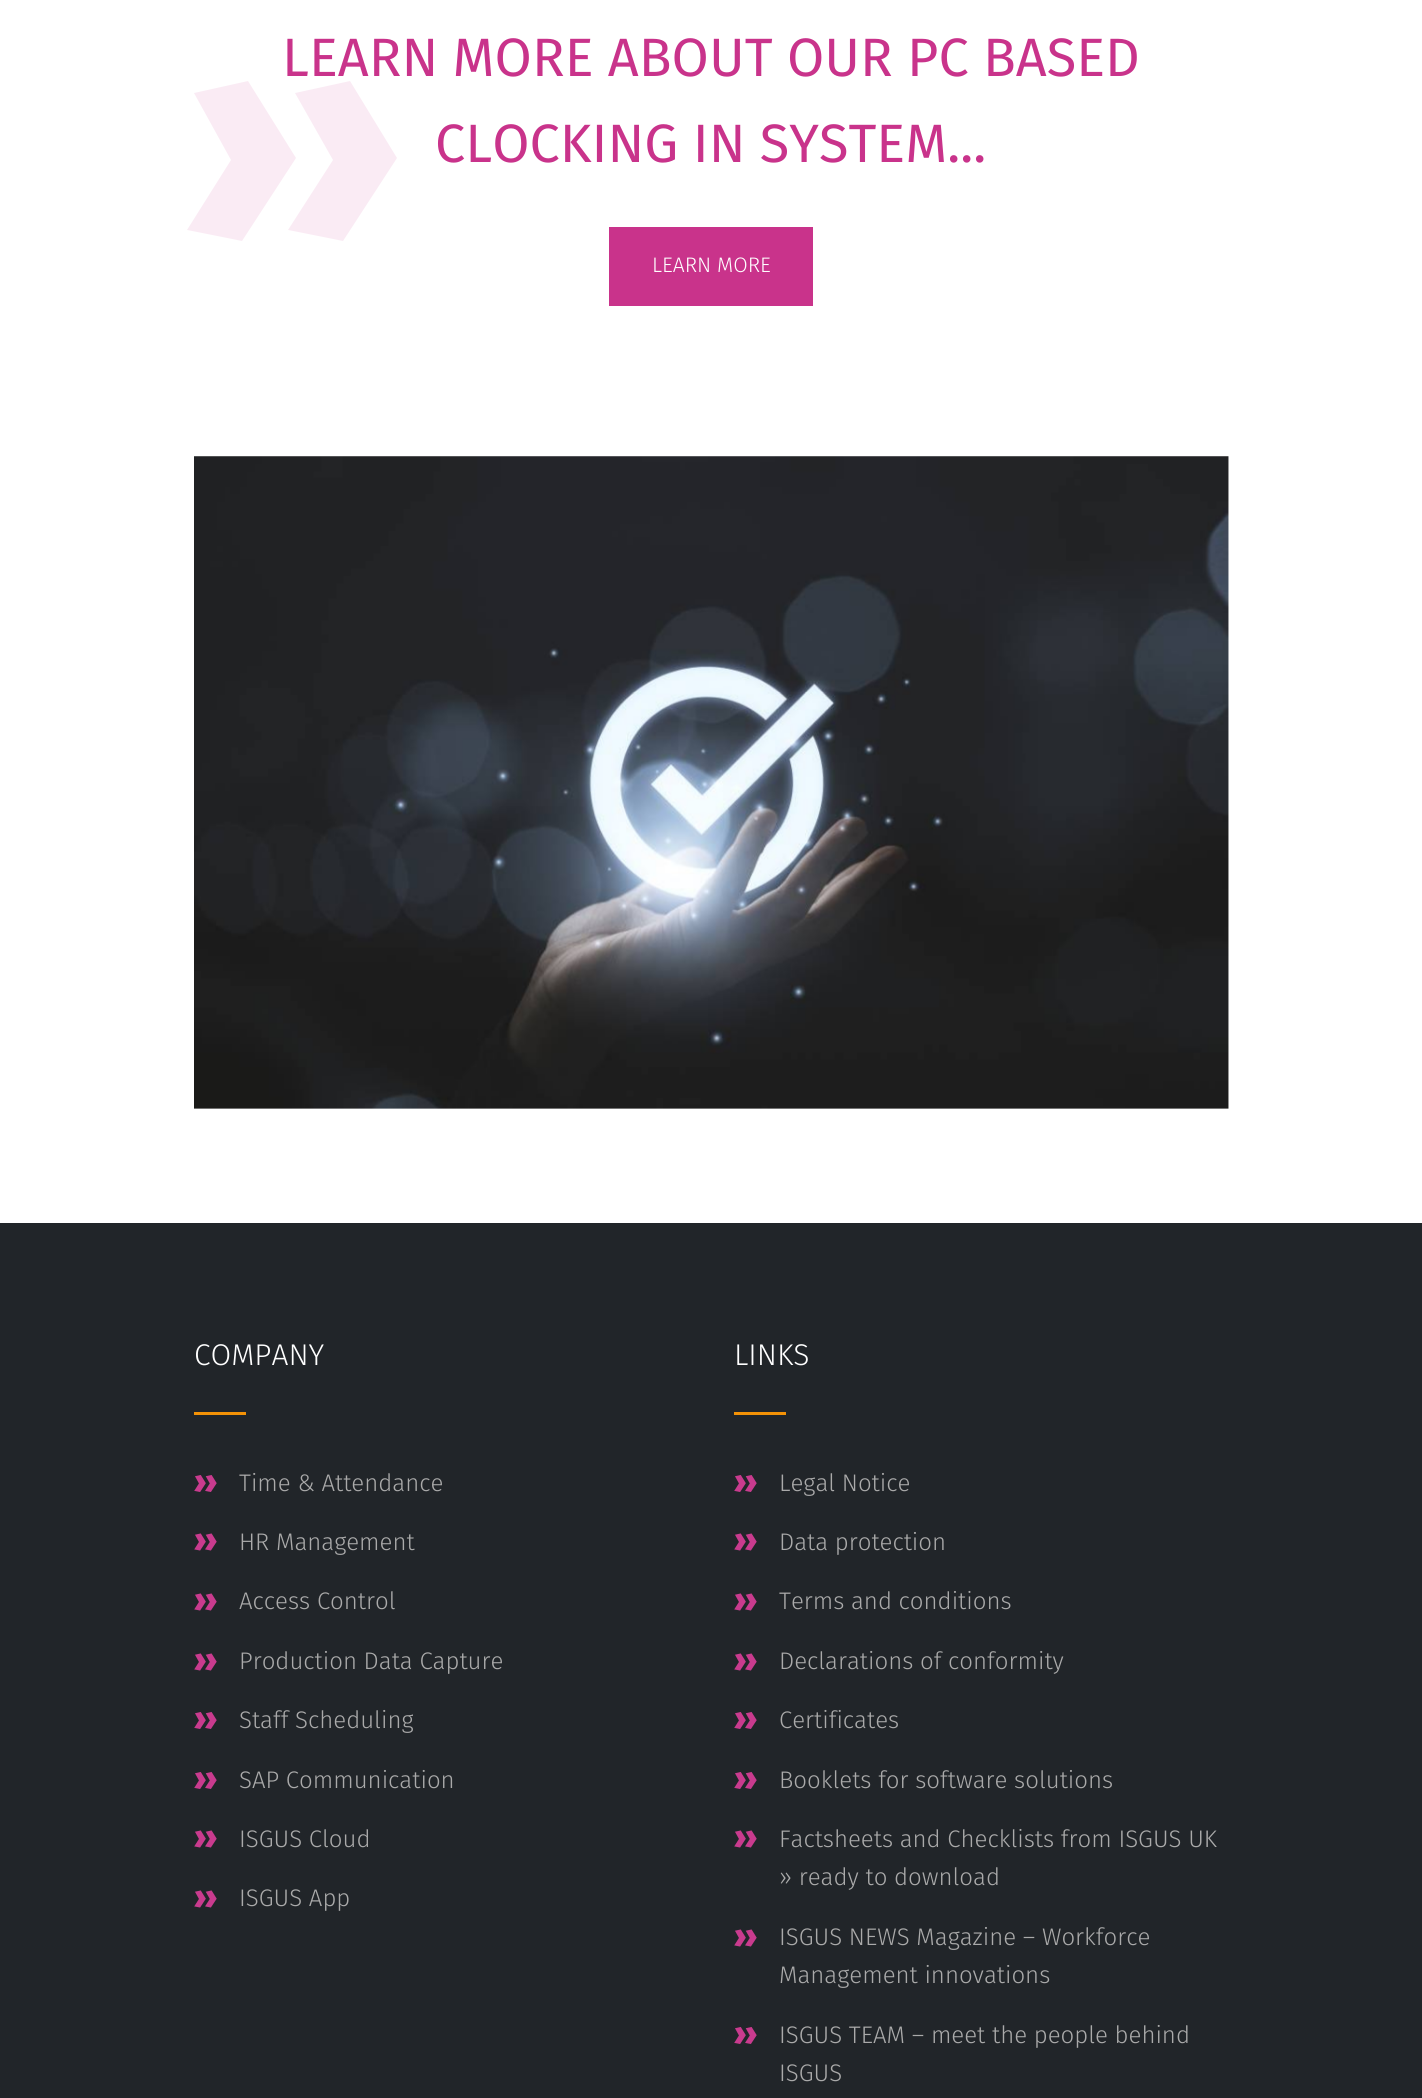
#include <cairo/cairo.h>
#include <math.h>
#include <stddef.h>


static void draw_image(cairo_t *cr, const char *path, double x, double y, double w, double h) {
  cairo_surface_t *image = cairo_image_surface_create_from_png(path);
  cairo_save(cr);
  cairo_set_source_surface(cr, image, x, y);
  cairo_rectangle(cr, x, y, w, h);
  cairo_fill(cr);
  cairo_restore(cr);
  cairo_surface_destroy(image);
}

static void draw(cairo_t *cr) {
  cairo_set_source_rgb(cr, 1, 1, 1);
  cairo_paint(cr);
  cairo_set_source_rgb(cr, 250 / 255.0, 235 / 255.0, 244 / 255.0);
  cairo_new_path(cr);
  cairo_move_to(cr, 242, 241);
  cairo_line_to(cr, 187, 230);
  cairo_line_to(cr, 231, 160);
  cairo_line_to(cr, 194, 93);
  cairo_line_to(cr, 248, 81);
  cairo_line_to(cr, 296, 158);
  cairo_close_path(cr);
  cairo_move_to(cr, 343, 241);
  cairo_line_to(cr, 288, 230);
  cairo_line_to(cr, 333, 160);
  cairo_line_to(cr, 295, 93);
  cairo_line_to(cr, 350, 81);
  cairo_line_to(cr, 397, 158);
  cairo_close_path(cr);
  cairo_fill(cr);
  cairo_set_source_rgb(cr, 201 / 255.0, 51 / 255.0, 139 / 255.0);
  cairo_rectangle(cr, 609, 227, 204, 79);
  cairo_fill(cr);
  draw_image(cr, "images/1.png", 194, 456, 1035, 653);
  cairo_set_source_rgb(cr, 33 / 255.0, 37 / 255.0, 41 / 255.0);
  cairo_rectangle(cr, 0, 1223, 1422, 875);
  cairo_fill(cr);
  cairo_set_source_rgb(cr, 243 / 255.0, 146 / 255.0, 7 / 255.0);
  cairo_rectangle(cr, 194, 1412, 52, 3);
  cairo_fill(cr);
  draw_image(cr, "images/2.png", 194, 1475, 23, 17);
  draw_image(cr, "images/3.png", 194, 1533, 23, 18);
  draw_image(cr, "images/3.png", 194, 1593, 23, 18);
  draw_image(cr, "images/3.png", 194, 1653, 23, 18);
  draw_image(cr, "images/2.png", 194, 1712, 23, 17);
  draw_image(cr, "images/2.png", 194, 1772, 23, 17);
  draw_image(cr, "images/3.png", 194, 1830, 23, 18);
  draw_image(cr, "images/3.png", 194, 1890, 23, 18);
  cairo_rectangle(cr, 734, 1412, 52, 3);
  cairo_fill(cr);
  draw_image(cr, "images/2.png", 734, 1475, 23, 17);
  draw_image(cr, "images/3.png", 734, 1533, 23, 18);
  draw_image(cr, "images/3.png", 734, 1593, 23, 18);
  draw_image(cr, "images/3.png", 734, 1653, 23, 18);
  draw_image(cr, "images/2.png", 734, 1712, 23, 17);
  draw_image(cr, "images/2.png", 734, 1772, 23, 17);
  draw_image(cr, "images/3.png", 734, 1830, 23, 18);
  draw_image(cr, "images/3.png", 734, 1929, 23, 18);
  draw_image(cr, "images/2.png", 734, 2027, 23, 17);
  cairo_select_font_face(cr, "Fira Sans", CAIRO_FONT_SLANT_NORMAL, CAIRO_FONT_WEIGHT_NORMAL);
  cairo_set_font_size(cr, 54);
  cairo_set_source_rgb(cr, 201 / 255.0, 51 / 255.0, 139 / 255.0);
  cairo_move_to(cr, 282, 76);
  cairo_show_text(cr, "LEARN MORE ABOUT OUR PC BASED");
  cairo_move_to(cr, 435, 162);
  cairo_show_text(cr, "CLOCKING IN SYSTEM...");
  cairo_select_font_face(cr, "Fira Sans Light", CAIRO_FONT_SLANT_NORMAL, CAIRO_FONT_WEIGHT_NORMAL);
  cairo_set_font_size(cr, 21);
  cairo_set_source_rgb(cr, 1, 1, 1);
  cairo_move_to(cr, 652, 272);
  cairo_show_text(cr, "LEARN MORE");
  cairo_set_font_size(cr, 30);
  cairo_move_to(cr, 194, 1365);
  cairo_show_text(cr, "COMPANY");
  cairo_set_font_size(cr, 24);
  cairo_set_source_rgb(cr, 170 / 255.0, 170 / 255.0, 170 / 255.0);
  cairo_move_to(cr, 239, 1491);
  cairo_show_text(cr, "Time & Attendance");
  cairo_move_to(cr, 239, 1550);
  cairo_show_text(cr, "HR Management");
  cairo_move_to(cr, 239, 1609);
  cairo_show_text(cr, "Access Control");
  cairo_move_to(cr, 239, 1669);
  cairo_show_text(cr, "Production Data Capture");
  cairo_move_to(cr, 239, 1728);
  cairo_show_text(cr, "Staff Scheduling");
  cairo_move_to(cr, 239, 1788);
  cairo_show_text(cr, "SAP Communication");
  cairo_move_to(cr, 239, 1847);
  cairo_show_text(cr, "ISGUS Cloud");
  cairo_move_to(cr, 239, 1906);
  cairo_show_text(cr, "ISGUS App");
  cairo_set_font_size(cr, 30);
  cairo_set_source_rgb(cr, 1, 1, 1);
  cairo_move_to(cr, 734, 1365);
  cairo_show_text(cr, "LINKS");
  cairo_set_font_size(cr, 24);
  cairo_set_source_rgb(cr, 170 / 255.0, 170 / 255.0, 170 / 255.0);
  cairo_move_to(cr, 779, 1491);
  cairo_show_text(cr, "Legal Notice");
  cairo_move_to(cr, 779, 1550);
  cairo_show_text(cr, "Data protection");
  cairo_move_to(cr, 779, 1609);
  cairo_show_text(cr, "Terms and conditions");
  cairo_move_to(cr, 779, 1669);
  cairo_show_text(cr, "Declarations of conformity");
  cairo_move_to(cr, 779, 1728);
  cairo_show_text(cr, "Certificates");
  cairo_move_to(cr, 779, 1788);
  cairo_show_text(cr, "Booklets for software solutions");
  cairo_move_to(cr, 779, 1847);
  cairo_show_text(cr, "Factsheets and Checklists from ISGUS UK");
  cairo_move_to(cr, 779, 1885);
  cairo_show_text(cr, "» ready to download");
  cairo_move_to(cr, 779, 1945);
  cairo_show_text(cr, "ISGUS NEWS Magazine – Workforce");
  cairo_move_to(cr, 779, 1983);
  cairo_show_text(cr, "Management innovations");
  cairo_move_to(cr, 779, 2043);
  cairo_show_text(cr, "ISGUS TEAM – meet the people behind");
  cairo_move_to(cr, 779, 2081);
  cairo_show_text(cr, "ISGUS");
}

int main(void) {
  cairo_surface_t *surface = cairo_image_surface_create(CAIRO_FORMAT_RGB24, 1422, 2098);
  cairo_t *cr = cairo_create(surface);
  cairo_font_options_t *options = cairo_font_options_create();
  cairo_font_options_set_hint_metrics(options, CAIRO_HINT_METRICS_OFF);
  cairo_font_options_set_hint_style(options, CAIRO_HINT_STYLE_NONE);
  cairo_set_font_options(cr, options);
  cairo_set_miter_limit(cr, 4);
  draw(cr);
  cairo_surface_write_to_png(surface, "out.png");
  cairo_font_options_destroy(options);
  cairo_destroy(cr);
  cairo_surface_destroy(surface);
  return 0;
}
